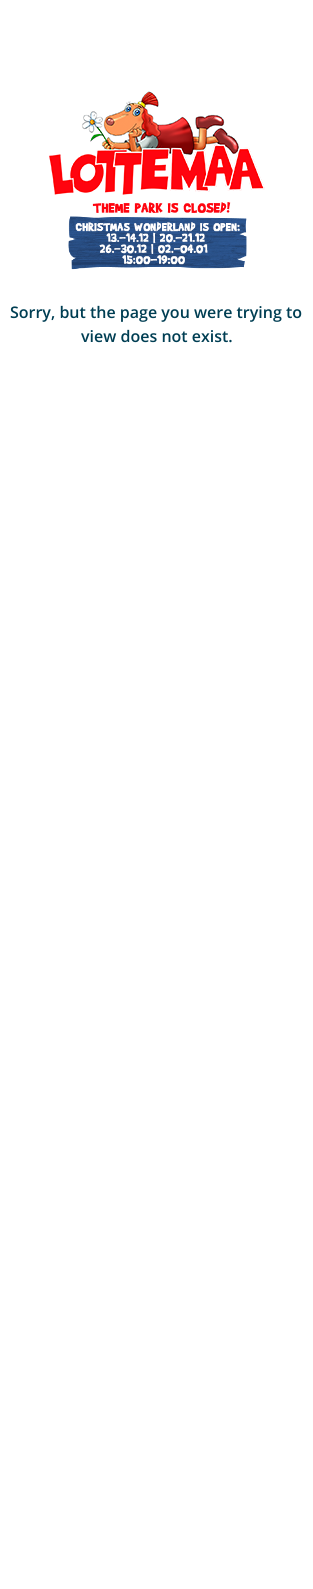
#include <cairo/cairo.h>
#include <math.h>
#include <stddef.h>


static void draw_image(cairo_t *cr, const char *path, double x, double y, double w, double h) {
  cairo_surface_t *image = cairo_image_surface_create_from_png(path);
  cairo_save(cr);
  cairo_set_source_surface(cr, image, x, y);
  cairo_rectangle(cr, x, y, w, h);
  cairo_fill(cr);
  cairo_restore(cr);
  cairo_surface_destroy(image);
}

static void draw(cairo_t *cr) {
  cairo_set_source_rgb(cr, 1, 1, 1);
  cairo_paint(cr);
  draw_image(cr, "images/1.png", 49, 91, 216, 104);
  draw_image(cr, "images/2.png", 68, 202, 179, 68);
  cairo_select_font_face(cr, "Open Sans SemiBold", CAIRO_FONT_SLANT_NORMAL, CAIRO_FONT_WEIGHT_NORMAL);
  cairo_set_font_size(cr, 16);
  cairo_set_source_rgb(cr, 0, 62 / 255.0, 83 / 255.0);
  cairo_move_to(cr, 10, 318);
  cairo_show_text(cr, "Sorry, but the page you were trying to");
  cairo_move_to(cr, 81, 342);
  cairo_show_text(cr, "view does not exist.");
}

int main(void) {
  cairo_surface_t *surface = cairo_image_surface_create(CAIRO_FORMAT_RGB24, 313, 1589);
  cairo_t *cr = cairo_create(surface);
  cairo_font_options_t *options = cairo_font_options_create();
  cairo_font_options_set_hint_metrics(options, CAIRO_HINT_METRICS_OFF);
  cairo_font_options_set_hint_style(options, CAIRO_HINT_STYLE_NONE);
  cairo_set_font_options(cr, options);
  cairo_set_miter_limit(cr, 4);
  draw(cr);
  cairo_surface_write_to_png(surface, "out.png");
  cairo_font_options_destroy(options);
  cairo_destroy(cr);
  cairo_surface_destroy(surface);
  return 0;
}
